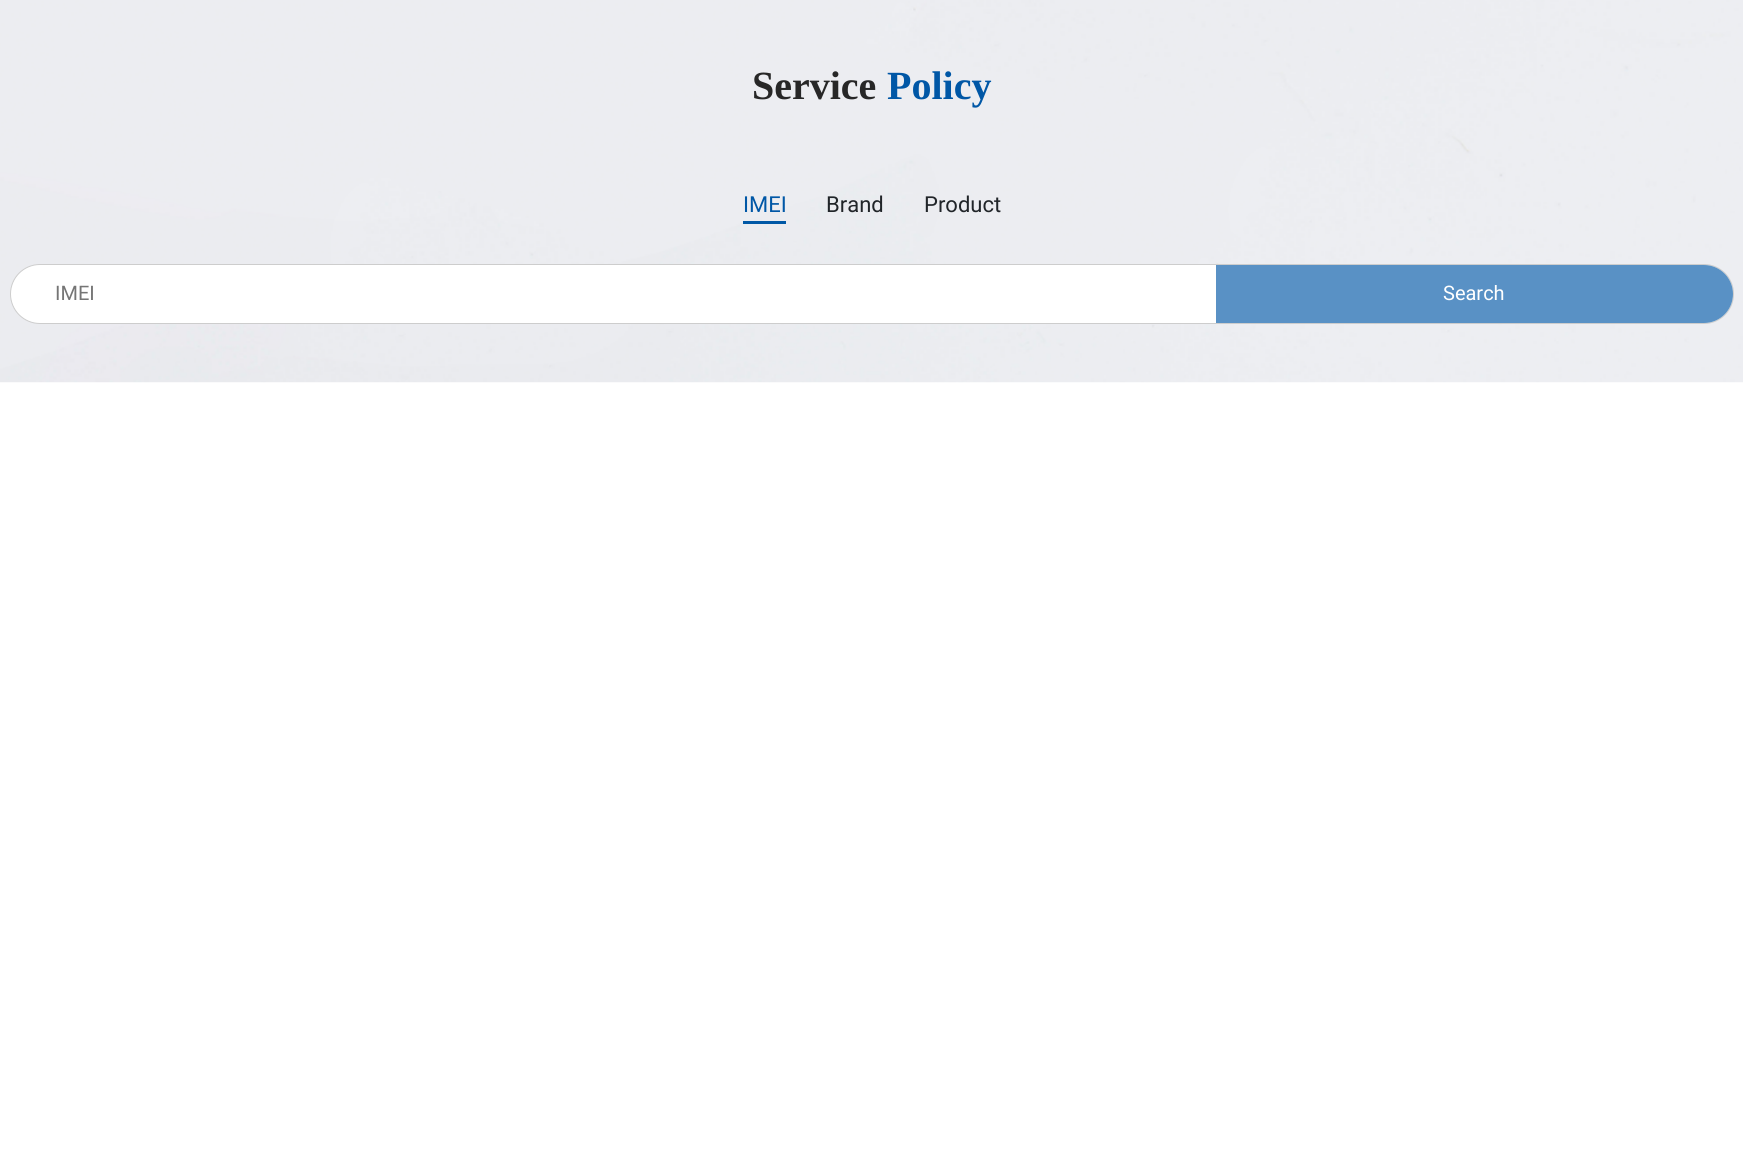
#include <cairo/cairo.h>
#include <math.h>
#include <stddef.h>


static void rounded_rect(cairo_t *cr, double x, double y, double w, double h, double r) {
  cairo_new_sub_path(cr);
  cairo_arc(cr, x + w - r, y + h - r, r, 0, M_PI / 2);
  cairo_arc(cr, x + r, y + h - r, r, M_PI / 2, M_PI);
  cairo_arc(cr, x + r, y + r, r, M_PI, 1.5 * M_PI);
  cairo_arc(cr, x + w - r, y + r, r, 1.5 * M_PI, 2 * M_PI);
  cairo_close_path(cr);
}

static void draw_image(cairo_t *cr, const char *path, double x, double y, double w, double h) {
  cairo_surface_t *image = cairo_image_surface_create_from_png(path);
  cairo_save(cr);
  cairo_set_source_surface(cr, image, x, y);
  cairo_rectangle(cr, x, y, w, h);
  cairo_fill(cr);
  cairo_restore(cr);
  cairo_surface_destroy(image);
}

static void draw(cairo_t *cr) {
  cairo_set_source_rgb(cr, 1, 1, 1);
  cairo_paint(cr);
  draw_image(cr, "images/1.png", 0, 0, 1743, 383);
  cairo_set_source_rgb(cr, 0, 88 / 255.0, 166 / 255.0);
  cairo_rectangle(cr, 743, 221, 43, 3);
  cairo_fill(cr);
  cairo_set_source_rgb(cr, 1, 1, 1);
  rounded_rect(cr, 10.5, 264.5, 1723, 59, 29.5);
  cairo_fill_preserve(cr);
  cairo_set_source_rgb(cr, 205 / 255.0, 205 / 255.0, 205 / 255.0);
  cairo_set_line_width(cr, 1);
  cairo_stroke(cr);
  cairo_set_source_rgba(cr, 0, 87 / 255.0, 166 / 255.0, 0.65);
  cairo_new_path(cr);
  cairo_move_to(cr, 1216, 265);
  cairo_line_to(cr, 1704, 265);
  cairo_curve_to(cr, 1720, 265, 1733, 278, 1733, 294);
  cairo_curve_to(cr, 1733, 310, 1720, 323, 1704, 323);
  cairo_line_to(cr, 1216, 323);
  cairo_close_path(cr);
  cairo_fill(cr);
  cairo_select_font_face(cr, "Liberation Serif", CAIRO_FONT_SLANT_NORMAL, CAIRO_FONT_WEIGHT_BOLD);
  cairo_set_font_size(cr, 40);
  cairo_set_source_rgb(cr, 39 / 255.0, 39 / 255.0, 39 / 255.0);
  cairo_move_to(cr, 752, 99);
  cairo_show_text(cr, "Service");
  cairo_set_source_rgb(cr, 0, 87 / 255.0, 166 / 255.0);
  cairo_move_to(cr, 887, 99);
  cairo_show_text(cr, "Policy");
  cairo_select_font_face(cr, "Roboto", CAIRO_FONT_SLANT_NORMAL, CAIRO_FONT_WEIGHT_NORMAL);
  cairo_set_font_size(cr, 22);
  cairo_move_to(cr, 743, 212);
  cairo_show_text(cr, "IMEI");
  cairo_set_source_rgb(cr, 33 / 255.0, 37 / 255.0, 41 / 255.0);
  cairo_move_to(cr, 826, 212);
  cairo_show_text(cr, "Brand");
  cairo_move_to(cr, 924, 212);
  cairo_show_text(cr, "Product");
  cairo_set_font_size(cr, 20);
  cairo_set_source_rgb(cr, 117 / 255.0, 117 / 255.0, 117 / 255.0);
  cairo_move_to(cr, 55, 300);
  cairo_show_text(cr, "IMEI");
  cairo_set_source_rgb(cr, 1, 1, 1);
  cairo_move_to(cr, 1443, 300);
  cairo_show_text(cr, "Search");
}

int main(void) {
  cairo_surface_t *surface = cairo_image_surface_create(CAIRO_FORMAT_RGB24, 1743, 1173);
  cairo_t *cr = cairo_create(surface);
  cairo_font_options_t *options = cairo_font_options_create();
  cairo_font_options_set_hint_metrics(options, CAIRO_HINT_METRICS_OFF);
  cairo_font_options_set_hint_style(options, CAIRO_HINT_STYLE_NONE);
  cairo_set_font_options(cr, options);
  cairo_set_miter_limit(cr, 4);
  draw(cr);
  cairo_surface_write_to_png(surface, "out.png");
  cairo_font_options_destroy(options);
  cairo_destroy(cr);
  cairo_surface_destroy(surface);
  return 0;
}
